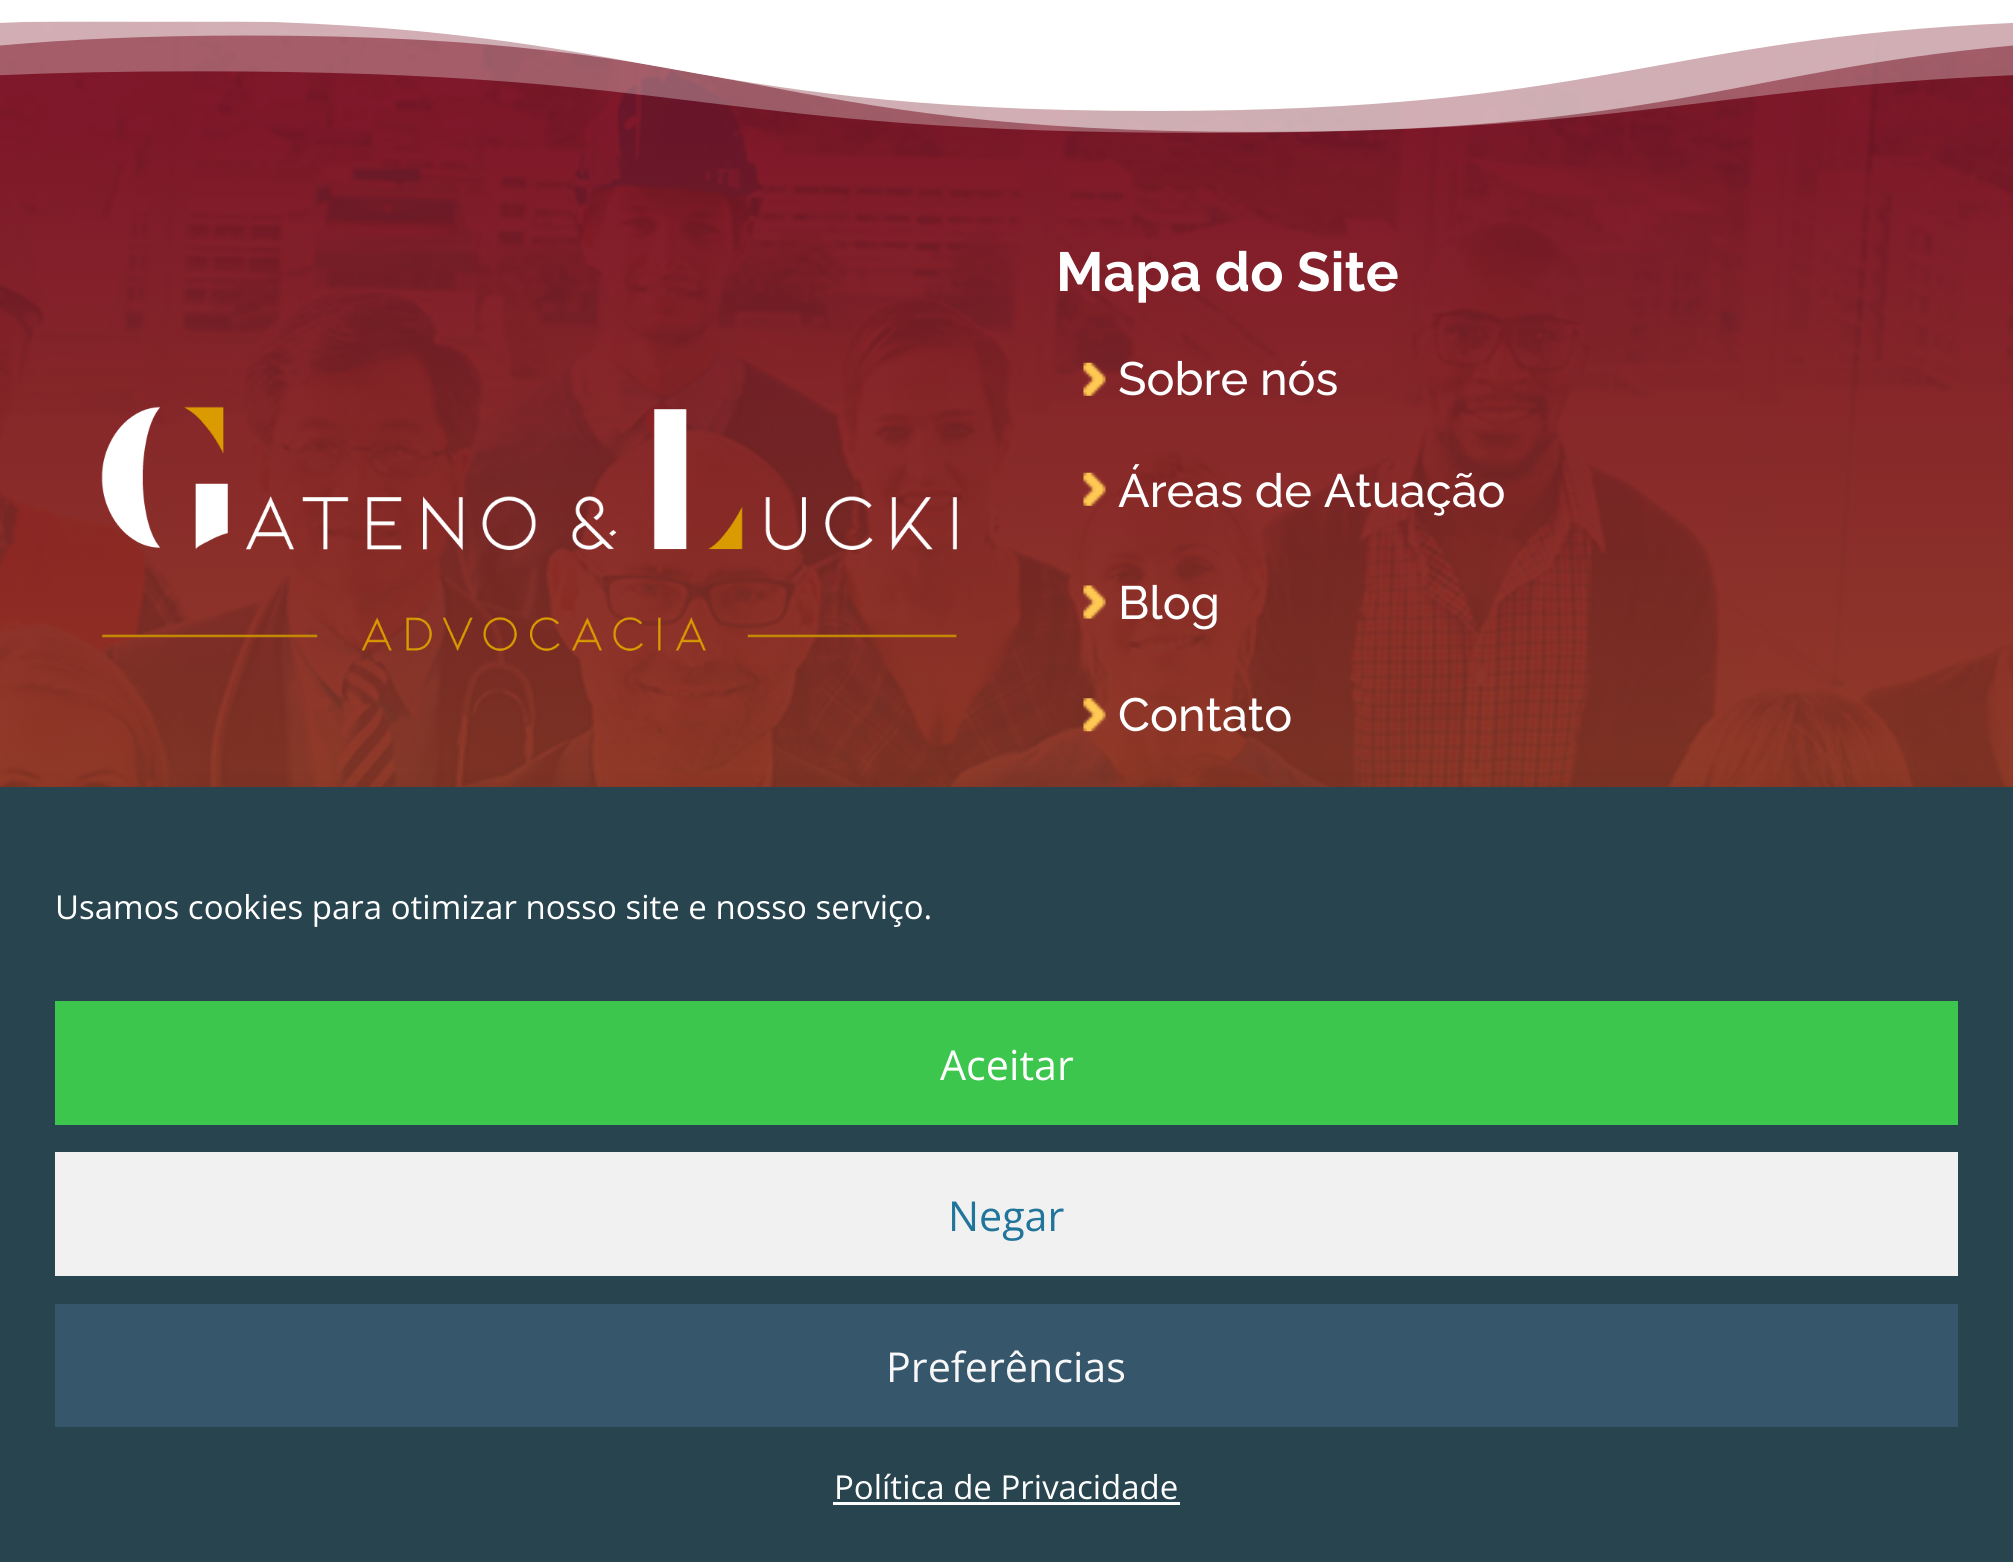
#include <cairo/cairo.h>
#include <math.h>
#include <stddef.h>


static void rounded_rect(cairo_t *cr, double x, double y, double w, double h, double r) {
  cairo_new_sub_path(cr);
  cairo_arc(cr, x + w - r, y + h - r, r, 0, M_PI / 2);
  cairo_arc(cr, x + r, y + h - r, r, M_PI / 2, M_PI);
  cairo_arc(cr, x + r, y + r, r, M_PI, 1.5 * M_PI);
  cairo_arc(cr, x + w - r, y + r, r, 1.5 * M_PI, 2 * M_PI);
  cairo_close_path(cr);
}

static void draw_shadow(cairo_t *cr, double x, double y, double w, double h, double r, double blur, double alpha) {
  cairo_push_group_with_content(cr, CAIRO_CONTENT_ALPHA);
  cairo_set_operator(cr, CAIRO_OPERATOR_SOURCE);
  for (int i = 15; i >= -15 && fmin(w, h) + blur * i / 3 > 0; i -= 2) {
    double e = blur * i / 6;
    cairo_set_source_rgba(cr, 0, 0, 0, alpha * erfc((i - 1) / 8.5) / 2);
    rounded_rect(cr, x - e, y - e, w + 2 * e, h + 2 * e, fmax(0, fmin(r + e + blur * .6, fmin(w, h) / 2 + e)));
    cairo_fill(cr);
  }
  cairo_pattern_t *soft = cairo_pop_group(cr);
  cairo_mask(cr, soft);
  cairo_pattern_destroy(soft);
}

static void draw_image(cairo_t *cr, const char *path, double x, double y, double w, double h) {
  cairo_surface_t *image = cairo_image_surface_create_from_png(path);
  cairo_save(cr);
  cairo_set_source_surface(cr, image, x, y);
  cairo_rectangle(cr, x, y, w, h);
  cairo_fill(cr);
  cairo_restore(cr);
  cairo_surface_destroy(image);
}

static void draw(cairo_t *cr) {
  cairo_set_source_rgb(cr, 1, 1, 1);
  cairo_paint(cr);
  draw_image(cr, "images/1.png", 0, 21, 2013, 766);
  draw_image(cr, "images/2.png", 0, 21, 2013, 112);
  draw_image(cr, "images/3.png", 101, 406, 856, 245);
  draw_image(cr, "images/4.png", 1083, 362, 23, 34);
  draw_image(cr, "images/5.png", 1083, 472, 23, 34);
  draw_image(cr, "images/6.png", 1083, 585, 23, 34);
  draw_image(cr, "images/7.png", 1083, 698, 23, 34);
  cairo_set_source_rgb(cr, 0, 0, 0);
  draw_shadow(cr, 0, 814, 2013, 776, 0, 27.5, 0.19);
  cairo_set_source_rgb(cr, 40 / 255.0, 68 / 255.0, 78 / 255.0);
  cairo_rectangle(cr, 0, 787, 2013, 775);
  cairo_fill(cr);
  cairo_set_source_rgb(cr, 61 / 255.0, 198 / 255.0, 77 / 255.0);
  cairo_rectangle(cr, 55, 1001, 1903, 124);
  cairo_fill(cr);
  cairo_set_source_rgb(cr, 241 / 255.0, 241 / 255.0, 241 / 255.0);
  cairo_rectangle(cr, 55, 1152, 1903, 124);
  cairo_fill(cr);
  cairo_set_source_rgb(cr, 54 / 255.0, 86 / 255.0, 107 / 255.0);
  cairo_rectangle(cr, 55, 1304, 1903, 123);
  cairo_fill(cr);
  cairo_set_source_rgb(cr, 1, 1, 1);
  cairo_rectangle(cr, 833, 1502, 347, 3);
  cairo_fill(cr);
  cairo_select_font_face(cr, "Raleway Thin", CAIRO_FONT_SLANT_NORMAL, CAIRO_FONT_WEIGHT_NORMAL);
  cairo_set_font_size(cr, 55);
  cairo_move_to(cr, 1056, 291);
  cairo_show_text(cr, "Mapa do Site");
  cairo_select_font_face(cr, "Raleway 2 Thin", CAIRO_FONT_SLANT_NORMAL, CAIRO_FONT_WEIGHT_NORMAL);
  cairo_set_font_size(cr, 46.75);
  cairo_move_to(cr, 1118, 395);
  cairo_show_text(cr, "Sobre nós");
  cairo_move_to(cr, 1118, 507);
  cairo_show_text(cr, "Áreas de Atuação");
  cairo_move_to(cr, 1118, 619);
  cairo_show_text(cr, "Blog");
  cairo_move_to(cr, 1118, 731);
  cairo_show_text(cr, "Contato");
  cairo_select_font_face(cr, "Open Sans", CAIRO_FONT_SLANT_NORMAL, CAIRO_FONT_WEIGHT_NORMAL);
  cairo_set_font_size(cr, 33);
  cairo_move_to(cr, 55, 919);
  cairo_show_text(cr, "Usamos cookies para otimizar nosso site e nosso serviço.");
  cairo_set_font_size(cr, 41.25);
  cairo_move_to(cr, 940, 1080);
  cairo_show_text(cr, "Aceitar");
  cairo_set_source_rgb(cr, 33 / 255.0, 117 / 255.0, 155 / 255.0);
  cairo_move_to(cr, 948, 1231);
  cairo_show_text(cr, "Negar");
  cairo_set_source_rgb(cr, 247 / 255.0, 247 / 255.0, 247 / 255.0);
  cairo_move_to(cr, 886, 1382);
  cairo_show_text(cr, "Preferências");
  cairo_set_font_size(cr, 33);
  cairo_set_source_rgb(cr, 1, 1, 1);
  cairo_move_to(cr, 834, 1499);
  cairo_show_text(cr, "Política de Privacidade");
}

int main(void) {
  cairo_surface_t *surface = cairo_image_surface_create(CAIRO_FORMAT_RGB24, 2013, 1562);
  cairo_t *cr = cairo_create(surface);
  cairo_font_options_t *options = cairo_font_options_create();
  cairo_font_options_set_hint_metrics(options, CAIRO_HINT_METRICS_OFF);
  cairo_font_options_set_hint_style(options, CAIRO_HINT_STYLE_NONE);
  cairo_set_font_options(cr, options);
  cairo_set_miter_limit(cr, 4);
  draw(cr);
  cairo_surface_write_to_png(surface, "out.png");
  cairo_font_options_destroy(options);
  cairo_destroy(cr);
  cairo_surface_destroy(surface);
  return 0;
}
